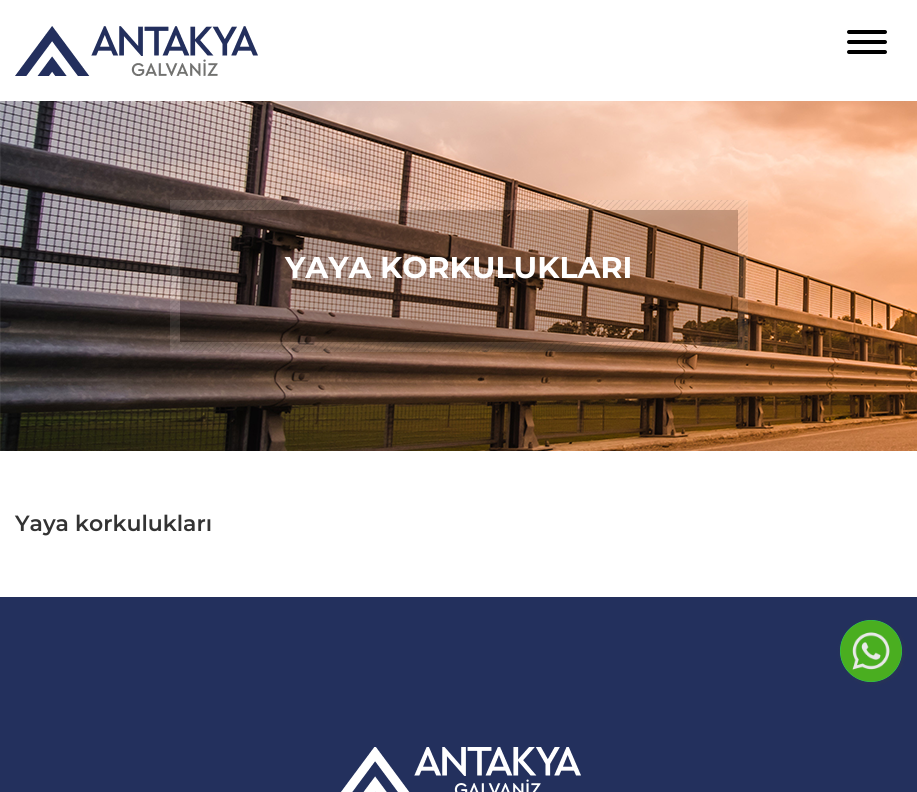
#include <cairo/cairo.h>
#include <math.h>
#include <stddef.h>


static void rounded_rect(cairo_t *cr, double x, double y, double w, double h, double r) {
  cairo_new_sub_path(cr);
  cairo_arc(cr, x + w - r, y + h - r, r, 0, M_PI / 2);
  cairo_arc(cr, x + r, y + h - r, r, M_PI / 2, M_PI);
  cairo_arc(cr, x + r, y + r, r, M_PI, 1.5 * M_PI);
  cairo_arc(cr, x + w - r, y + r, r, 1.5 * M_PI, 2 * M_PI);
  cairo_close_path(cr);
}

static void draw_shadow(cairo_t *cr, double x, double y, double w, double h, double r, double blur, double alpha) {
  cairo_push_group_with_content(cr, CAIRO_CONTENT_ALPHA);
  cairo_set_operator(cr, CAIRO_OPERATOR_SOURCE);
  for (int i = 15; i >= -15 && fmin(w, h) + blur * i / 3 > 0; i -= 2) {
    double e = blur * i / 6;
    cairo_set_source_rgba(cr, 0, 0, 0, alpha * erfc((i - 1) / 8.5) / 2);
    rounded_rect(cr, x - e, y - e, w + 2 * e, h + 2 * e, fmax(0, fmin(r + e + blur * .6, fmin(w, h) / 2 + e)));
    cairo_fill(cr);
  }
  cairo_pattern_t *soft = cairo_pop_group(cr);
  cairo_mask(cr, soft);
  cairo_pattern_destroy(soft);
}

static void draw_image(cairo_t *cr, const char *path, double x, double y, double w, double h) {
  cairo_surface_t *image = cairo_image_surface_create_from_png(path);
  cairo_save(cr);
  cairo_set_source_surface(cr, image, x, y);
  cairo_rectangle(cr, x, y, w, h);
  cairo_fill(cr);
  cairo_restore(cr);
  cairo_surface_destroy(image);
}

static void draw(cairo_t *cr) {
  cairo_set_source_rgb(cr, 1, 1, 1);
  cairo_paint(cr);
  draw_image(cr, "images/1.png", 15, 26, 243, 50);
  cairo_set_source_rgb(cr, 0, 0, 0);
  rounded_rect(cr, 847, 40, 40, 4, 2);
  cairo_fill(cr);
  rounded_rect(cr, 847, 30, 40, 4, 2);
  cairo_fill(cr);
  rounded_rect(cr, 847, 50, 40, 4, 2);
  cairo_fill(cr);
  draw_image(cr, "images/2.png", 0, 101, 917, 350);
  cairo_set_source_rgba(cr, 1, 1, 1, 0.1);
  cairo_rectangle(cr, 180, 342, 558, 10);
  cairo_fill(cr);
  draw_image(cr, "images/6.png", 179, 342, 559, 10);
  cairo_rectangle(cr, 170, 200, 10, 152);
  cairo_fill(cr);
  draw_image(cr, "images/3.png", 169, 200, 11, 152);
  cairo_rectangle(cr, 180, 200, 558, 10);
  cairo_fill(cr);
  draw_image(cr, "images/4.png", 180, 200, 558, 10);
  cairo_rectangle(cr, 738, 200, 10, 152);
  cairo_fill(cr);
  cairo_set_source_rgba(cr, 0, 0, 0, 0.2);
  cairo_rectangle(cr, 180, 210, 558, 132);
  cairo_fill(cr);
  draw_image(cr, "images/5.png", 737, 200, 11, 152);
  cairo_set_source_rgb(cr, 35 / 255.0, 48 / 255.0, 93 / 255.0);
  cairo_rectangle(cr, 0, 597, 917, 195);
  cairo_fill(cr);
  draw_image(cr, "images/7.png", 341, 747, 240, 45);
  cairo_set_source_rgb(cr, 60 / 255.0, 60 / 255.0, 60 / 255.0);
  draw_shadow(cr, 841, 621, 62, 62, 31, 2, 0.4);
  cairo_set_source_rgb(cr, 37 / 255.0, 211 / 255.0, 102 / 255.0);
  cairo_arc(cr, 871, 651, 31, 0, 2 * M_PI);
  cairo_fill(cr);
  draw_image(cr, "images/8.png", 840, 620, 62, 62);
  cairo_select_font_face(cr, "Montserrat", CAIRO_FONT_SLANT_NORMAL, CAIRO_FONT_WEIGHT_BOLD);
  cairo_set_font_size(cr, 30);
  cairo_set_source_rgb(cr, 1, 1, 1);
  cairo_move_to(cr, 285, 278);
  cairo_show_text(cr, "YAYA KORKULUKLARI");
  cairo_select_font_face(cr, "Montserrat SemiBold", CAIRO_FONT_SLANT_NORMAL, CAIRO_FONT_WEIGHT_NORMAL);
  cairo_set_font_size(cr, 22);
  cairo_set_source_rgb(cr, 51 / 255.0, 51 / 255.0, 51 / 255.0);
  cairo_move_to(cr, 15, 531);
  cairo_show_text(cr, "Yaya korkulukları");
}

int main(void) {
  cairo_surface_t *surface = cairo_image_surface_create(CAIRO_FORMAT_RGB24, 917, 792);
  cairo_t *cr = cairo_create(surface);
  cairo_font_options_t *options = cairo_font_options_create();
  cairo_font_options_set_hint_metrics(options, CAIRO_HINT_METRICS_OFF);
  cairo_font_options_set_hint_style(options, CAIRO_HINT_STYLE_NONE);
  cairo_set_font_options(cr, options);
  cairo_set_miter_limit(cr, 4);
  draw(cr);
  cairo_surface_write_to_png(surface, "out.png");
  cairo_font_options_destroy(options);
  cairo_destroy(cr);
  cairo_surface_destroy(surface);
  return 0;
}
